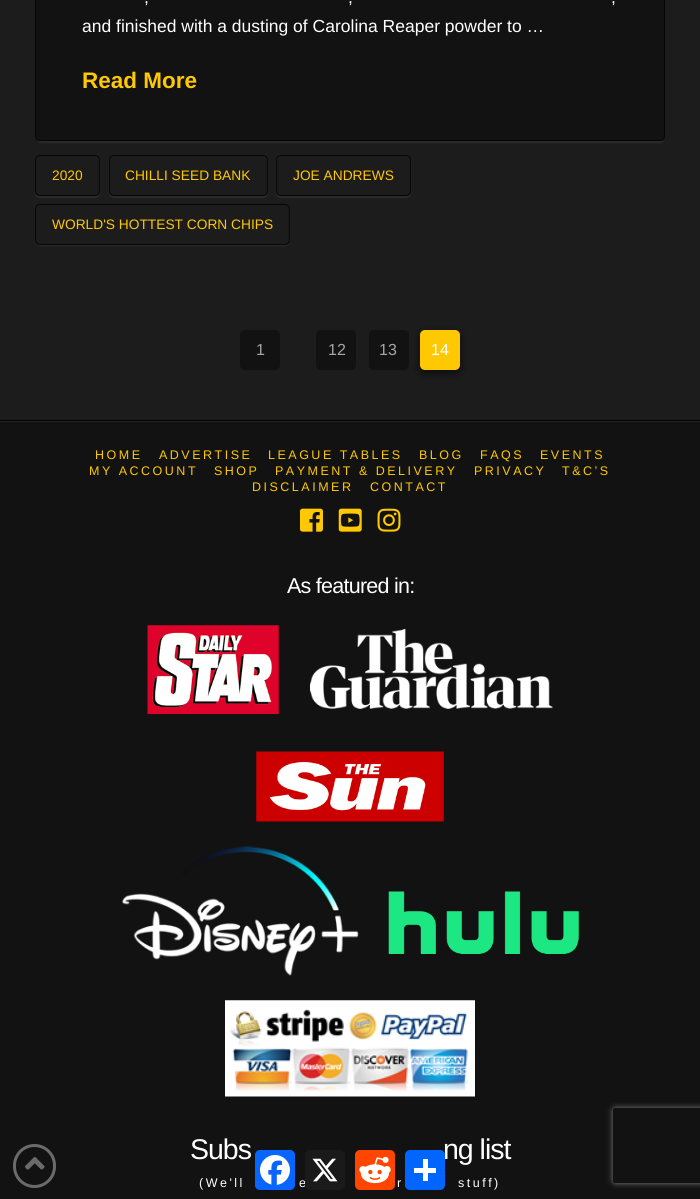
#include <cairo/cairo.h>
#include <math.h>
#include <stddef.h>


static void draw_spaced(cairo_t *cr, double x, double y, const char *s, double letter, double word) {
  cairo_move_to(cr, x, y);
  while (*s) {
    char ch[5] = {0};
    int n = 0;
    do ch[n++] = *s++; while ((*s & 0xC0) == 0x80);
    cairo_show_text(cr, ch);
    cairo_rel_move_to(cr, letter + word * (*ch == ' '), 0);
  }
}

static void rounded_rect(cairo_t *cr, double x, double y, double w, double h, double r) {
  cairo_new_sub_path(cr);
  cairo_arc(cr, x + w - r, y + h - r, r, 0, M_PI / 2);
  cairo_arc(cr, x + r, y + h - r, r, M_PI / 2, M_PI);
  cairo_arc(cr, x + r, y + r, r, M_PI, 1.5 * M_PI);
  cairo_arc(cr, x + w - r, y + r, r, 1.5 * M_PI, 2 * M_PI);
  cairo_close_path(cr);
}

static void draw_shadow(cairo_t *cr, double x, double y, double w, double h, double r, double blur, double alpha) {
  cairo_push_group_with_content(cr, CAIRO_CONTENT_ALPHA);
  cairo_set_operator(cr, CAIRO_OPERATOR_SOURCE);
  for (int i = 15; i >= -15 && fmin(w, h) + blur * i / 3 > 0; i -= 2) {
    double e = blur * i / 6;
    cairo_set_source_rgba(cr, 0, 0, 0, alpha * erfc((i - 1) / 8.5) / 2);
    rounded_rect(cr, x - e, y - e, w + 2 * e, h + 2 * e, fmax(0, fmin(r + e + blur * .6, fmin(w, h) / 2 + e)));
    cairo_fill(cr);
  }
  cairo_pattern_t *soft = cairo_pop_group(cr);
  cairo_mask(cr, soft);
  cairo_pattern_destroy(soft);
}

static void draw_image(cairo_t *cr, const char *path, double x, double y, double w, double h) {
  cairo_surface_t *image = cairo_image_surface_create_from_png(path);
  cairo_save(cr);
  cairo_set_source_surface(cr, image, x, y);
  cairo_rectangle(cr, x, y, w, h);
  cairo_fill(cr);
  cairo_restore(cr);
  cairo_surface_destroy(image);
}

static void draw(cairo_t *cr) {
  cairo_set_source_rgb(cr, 28 / 255.0, 28 / 255.0, 28 / 255.0);
  cairo_paint(cr);
  cairo_set_source_rgb(cr, 18 / 255.0, 18 / 255.0, 18 / 255.0);
  cairo_rectangle(cr, 0, 422, 700, 777);
  cairo_fill(cr);
  rounded_rect(cr, 14.5, 1145.5, 40, 41, 20);
  cairo_set_source_rgb(cr, 107 / 255.0, 107 / 255.0, 107 / 255.0);
  cairo_set_line_width(cr, 3);
  cairo_stroke(cr);
  draw_image(cr, "images/1.png", 25, 1157, 20, 13);
  cairo_set_source_rgb(cr, 1, 1, 1);
  draw_shadow(cr, 38, -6, 625, 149, 2.5, 1, 0.07);
  cairo_set_source_rgb(cr, 18 / 255.0, 18 / 255.0, 18 / 255.0);
  cairo_new_path(cr);
  cairo_move_to(cr, 35.5, -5.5);
  cairo_line_to(cr, 664.5, -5.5);
  cairo_line_to(cr, 664.5, 136);
  cairo_curve_to(cr, 664.5, 138.5, 662.5, 140.5, 660, 140.5);
  cairo_line_to(cr, 40, 140.5);
  cairo_curve_to(cr, 37.5, 140.5, 35.5, 138.5, 35.5, 136);
  cairo_close_path(cr);
  cairo_fill_preserve(cr);
  cairo_set_source_rgb(cr, 5 / 255.0, 5 / 255.0, 5 / 255.0);
  cairo_set_line_width(cr, 1);
  cairo_stroke(cr);
  cairo_save(cr);
  cairo_set_fill_rule(cr, CAIRO_FILL_RULE_EVEN_ODD);
  cairo_new_path(cr);
  cairo_move_to(cr, 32, 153);
  cairo_line_to(cr, 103, 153);
  cairo_line_to(cr, 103, 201);
  cairo_line_to(cr, 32, 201);
  cairo_close_path(cr);
  cairo_move_to(cr, 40, 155);
  cairo_line_to(cr, 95, 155);
  cairo_curve_to(cr, 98, 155, 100, 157, 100, 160);
  cairo_line_to(cr, 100, 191);
  cairo_curve_to(cr, 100, 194, 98, 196, 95, 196);
  cairo_line_to(cr, 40, 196);
  cairo_curve_to(cr, 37, 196, 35, 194, 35, 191);
  cairo_line_to(cr, 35, 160);
  cairo_curve_to(cr, 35, 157, 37, 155, 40, 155);
  cairo_close_path(cr);
  cairo_clip(cr);
  cairo_set_source_rgb(cr, 1, 1, 1);
  draw_shadow(cr, 35, 156, 65, 42, 5, 0.5, 0.07);
  cairo_restore(cr);
  rounded_rect(cr, 35.5, 155.5, 64, 40, 4.5);
  cairo_set_source_rgba(cr, 0, 0, 0, 0.78);
  cairo_stroke(cr);
  cairo_save(cr);
  cairo_set_fill_rule(cr, CAIRO_FILL_RULE_EVEN_ODD);
  cairo_new_path(cr);
  cairo_move_to(cr, 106, 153);
  cairo_line_to(cr, 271, 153);
  cairo_line_to(cr, 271, 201);
  cairo_line_to(cr, 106, 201);
  cairo_close_path(cr);
  cairo_move_to(cr, 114, 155);
  cairo_line_to(cr, 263, 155);
  cairo_curve_to(cr, 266, 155, 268, 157, 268, 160);
  cairo_line_to(cr, 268, 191);
  cairo_curve_to(cr, 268, 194, 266, 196, 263, 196);
  cairo_line_to(cr, 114, 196);
  cairo_curve_to(cr, 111, 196, 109, 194, 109, 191);
  cairo_line_to(cr, 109, 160);
  cairo_curve_to(cr, 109, 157, 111, 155, 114, 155);
  cairo_close_path(cr);
  cairo_clip(cr);
  cairo_set_source_rgb(cr, 1, 1, 1);
  draw_shadow(cr, 109, 156, 159, 42, 5, 0.5, 0.07);
  cairo_restore(cr);
  rounded_rect(cr, 109.5, 155.5, 158, 40, 4.5);
  cairo_stroke(cr);
  cairo_save(cr);
  cairo_set_fill_rule(cr, CAIRO_FILL_RULE_EVEN_ODD);
  cairo_new_path(cr);
  cairo_move_to(cr, 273, 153);
  cairo_line_to(cr, 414, 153);
  cairo_line_to(cr, 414, 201);
  cairo_line_to(cr, 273, 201);
  cairo_close_path(cr);
  cairo_move_to(cr, 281, 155);
  cairo_line_to(cr, 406, 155);
  cairo_curve_to(cr, 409, 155, 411, 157, 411, 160);
  cairo_line_to(cr, 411, 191);
  cairo_curve_to(cr, 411, 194, 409, 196, 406, 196);
  cairo_line_to(cr, 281, 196);
  cairo_curve_to(cr, 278, 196, 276, 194, 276, 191);
  cairo_line_to(cr, 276, 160);
  cairo_curve_to(cr, 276, 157, 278, 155, 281, 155);
  cairo_close_path(cr);
  cairo_clip(cr);
  cairo_set_source_rgb(cr, 1, 1, 1);
  draw_shadow(cr, 276, 156, 135, 42, 5, 0.5, 0.07);
  cairo_restore(cr);
  rounded_rect(cr, 276.5, 155.5, 134, 40, 4.5);
  cairo_stroke(cr);
  cairo_save(cr);
  cairo_set_fill_rule(cr, CAIRO_FILL_RULE_EVEN_ODD);
  cairo_new_path(cr);
  cairo_move_to(cr, 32, 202);
  cairo_line_to(cr, 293, 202);
  cairo_line_to(cr, 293, 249);
  cairo_line_to(cr, 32, 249);
  cairo_close_path(cr);
  cairo_move_to(cr, 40, 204);
  cairo_line_to(cr, 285, 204);
  cairo_curve_to(cr, 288, 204, 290, 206, 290, 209);
  cairo_line_to(cr, 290, 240);
  cairo_curve_to(cr, 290, 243, 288, 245, 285, 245);
  cairo_line_to(cr, 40, 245);
  cairo_curve_to(cr, 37, 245, 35, 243, 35, 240);
  cairo_line_to(cr, 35, 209);
  cairo_curve_to(cr, 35, 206, 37, 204, 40, 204);
  cairo_close_path(cr);
  cairo_clip(cr);
  cairo_set_source_rgb(cr, 1, 1, 1);
  draw_shadow(cr, 35, 205, 255, 41, 5, 0.5, 0.07);
  cairo_restore(cr);
  rounded_rect(cr, 35.5, 204.5, 254, 40, 4.5);
  cairo_stroke(cr);
  cairo_set_source_rgb(cr, 18 / 255.0, 18 / 255.0, 18 / 255.0);
  rounded_rect(cr, 240, 330, 40, 40, 5);
  cairo_fill(cr);
  rounded_rect(cr, 316, 330, 40, 40, 5);
  cairo_fill(cr);
  rounded_rect(cr, 369, 330, 40, 40, 5);
  cairo_fill(cr);
  cairo_set_source_rgb(cr, 0, 0, 0);
  draw_shadow(cr, 420, 333, 40, 40, 5, 4.5, 0.65);
  cairo_set_source_rgb(cr, 254 / 255.0, 200 / 255.0, 3 / 255.0);
  rounded_rect(cr, 420, 330, 40, 40, 5);
  cairo_fill(cr);
  cairo_set_source_rgb(cr, 36 / 255.0, 36 / 255.0, 36 / 255.0);
  cairo_rectangle(cr, 0, 421, 700, 1);
  cairo_fill(cr);
  cairo_set_source_rgb(cr, 0, 0, 0);
  cairo_rectangle(cr, 0, 420, 700, 1);
  cairo_fill(cr);
  draw_image(cr, "images/2.png", 300, 508, 23, 24);
  draw_image(cr, "images/3.png", 338, 508, 24, 24);
  draw_image(cr, "images/4.png", 377, 508, 24, 24);
  draw_image(cr, "images/5.png", 147, 625, 132, 89);
  draw_image(cr, "images/6.png", 310, 629, 243, 80);
  draw_image(cr, "images/7.png", 256, 751, 188, 71);
  draw_image(cr, "images/8.png", 122, 846, 237, 130);
  draw_image(cr, "images/9.png", 388, 891, 191, 63);
  draw_image(cr, "images/10.png", 225, 1000, 250, 97);
  cairo_save(cr);
  cairo_set_fill_rule(cr, CAIRO_FILL_RULE_EVEN_ODD);
  cairo_new_path(cr);
  cairo_move_to(cr, 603, 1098);
  cairo_line_to(cr, 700, 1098);
  cairo_line_to(cr, 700, 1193);
  cairo_line_to(cr, 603, 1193);
  cairo_close_path(cr);
  cairo_move_to(cr, 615.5, 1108);
  cairo_line_to(cr, 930.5, 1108);
  cairo_curve_to(cr, 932, 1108, 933, 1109, 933, 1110.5);
  cairo_line_to(cr, 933, 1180.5);
  cairo_curve_to(cr, 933, 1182, 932, 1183, 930.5, 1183);
  cairo_line_to(cr, 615.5, 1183);
  cairo_curve_to(cr, 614, 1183, 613, 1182, 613, 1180.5);
  cairo_line_to(cr, 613, 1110.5);
  cairo_curve_to(cr, 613, 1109, 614, 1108, 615.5, 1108);
  cairo_close_path(cr);
  cairo_clip(cr);
  cairo_set_source_rgb(cr, 128 / 255.0, 128 / 255.0, 128 / 255.0);
  draw_shadow(cr, 613, 1108, 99, 75, 2.5, 3, 1);
  cairo_restore(cr);
  cairo_set_source_rgb(cr, 8 / 255.0, 102 / 255.0, 1);
  rounded_rect(cr, 255, 1150, 40, 40, 5);
  cairo_fill(cr);
  draw_image(cr, "images/11.png", 260, 1155, 30, 30);
  cairo_set_source_rgb(cr, 1, 69 / 255.0, 0);
  rounded_rect(cr, 355, 1150, 40, 40, 5);
  cairo_fill(cr);
  draw_image(cr, "images/13.png", 359, 1156, 32, 28);
  cairo_select_font_face(cr, "Liberation Sans", CAIRO_FONT_SLANT_NORMAL, CAIRO_FONT_WEIGHT_NORMAL);
  cairo_set_font_size(cr, 17.5);
  cairo_set_source_rgb(cr, 1, 1, 1);
  cairo_move_to(cr, 144, 3);
  cairo_show_text(cr, ",");
  cairo_move_to(cr, 348, 3);
  cairo_show_text(cr, ",");
  cairo_move_to(cr, 611, 3);
  cairo_show_text(cr, ",");
  cairo_move_to(cr, 82, 32);
  cairo_show_text(cr, "and finished with a dusting of Carolina Reaper powder to …");
  cairo_select_font_face(cr, "Liberation Sans", CAIRO_FONT_SLANT_NORMAL, CAIRO_FONT_WEIGHT_BOLD);
  cairo_set_font_size(cr, 22.5);
  cairo_set_source_rgb(cr, 254 / 255.0, 200 / 255.0, 3 / 255.0);
  cairo_move_to(cr, 82, 88);
  cairo_show_text(cr, "Read More");
  cairo_select_font_face(cr, "Liberation Sans", CAIRO_FONT_SLANT_NORMAL, CAIRO_FONT_WEIGHT_NORMAL);
  cairo_set_font_size(cr, 13.75);
  cairo_move_to(cr, 52, 180);
  cairo_show_text(cr, "2020");
  cairo_move_to(cr, 125, 180);
  cairo_show_text(cr, "CHILLI SEED BANK");
  cairo_move_to(cr, 293, 180);
  cairo_show_text(cr, "JOE ANDREWS");
  cairo_move_to(cr, 52, 229);
  cairo_show_text(cr, "WORLD'S HOTTEST CORN CHIPS");
  cairo_set_font_size(cr, 16);
  cairo_set_source_rgb(cr, 166 / 255.0, 166 / 255.0, 166 / 255.0);
  cairo_move_to(cr, 256, 355);
  cairo_show_text(cr, "1");
  cairo_move_to(cr, 328, 355);
  cairo_show_text(cr, "12");
  cairo_move_to(cr, 379, 355);
  cairo_show_text(cr, "13");
  cairo_set_source_rgb(cr, 1, 1, 1);
  cairo_move_to(cr, 431, 355);
  cairo_show_text(cr, "14");
  cairo_set_font_size(cr, 12.5);
  cairo_set_source_rgb(cr, 254 / 255.0, 200 / 255.0, 3 / 255.0);
  draw_spaced(cr, 95, 459, "HOME", 2.5, 0);
  draw_spaced(cr, 159, 459, "ADVERTISE", 2.5, 0);
  draw_spaced(cr, 268, 459, "LEAGUE TABLES", 2.5, 0);
  draw_spaced(cr, 419, 459, "BLOG", 2.5, 0);
  draw_spaced(cr, 480, 459, "FAQS", 2.5, 0);
  draw_spaced(cr, 540, 459, "EVENTS", 2.5, 0);
  draw_spaced(cr, 89, 475, "MY ACCOUNT", 2.5, 0);
  draw_spaced(cr, 214, 475, "SHOP", 2.5, 0);
  draw_spaced(cr, 275, 475, "PAYMENT & DELIVERY", 2.5, 0);
  draw_spaced(cr, 474, 475, "PRIVACY", 2.5, 0);
  draw_spaced(cr, 562, 475, "T&C’S", 2.5, 0);
  draw_spaced(cr, 252, 491, "DISCLAIMER", 2.5, 0);
  draw_spaced(cr, 370, 491, "CONTACT", 2.5, 0);
  cairo_set_font_size(cr, 21.5);
  cairo_set_source_rgb(cr, 1, 1, 1);
  draw_spaced(cr, 287, 593, "As featured in:", -0.75, 0);
  cairo_set_font_size(cr, 28.5);
  draw_spaced(cr, 190, 1159, "Subs", -1, 0);
  draw_spaced(cr, 443, 1159, "ng list", -1, 0);
  cairo_set_font_size(cr, 12.5);
  draw_spaced(cr, 199, 1187, "(We'll", 2.5, 0);
  draw_spaced(cr, 299, 1187, "e", 2.5, 0);
  draw_spaced(cr, 397, 1187, "r", 2.5, 0);
  draw_spaced(cr, 458, 1187, "stuff)", 2.5, 0);
  cairo_set_source_rgb(cr, 26 / 255.0, 26 / 255.0, 26 / 255.0);
  rounded_rect(cr, 305, 1150, 40, 40, 5);
  cairo_fill(cr);
  draw_image(cr, "images/12.png", 312, 1158, 26, 24);
  cairo_set_source_rgb(cr, 1 / 255.0, 102 / 255.0, 1);
  rounded_rect(cr, 405, 1150, 40, 40, 5);
  cairo_fill(cr);
  cairo_set_source_rgb(cr, 1, 1, 1);
  cairo_rectangle(cr, 423, 1159, 5, 22);
  cairo_fill(cr);
  cairo_rectangle(cr, 414, 1168, 22, 5);
  cairo_fill(cr);
}

int main(void) {
  cairo_surface_t *surface = cairo_image_surface_create(CAIRO_FORMAT_RGB24, 700, 1199);
  cairo_t *cr = cairo_create(surface);
  cairo_font_options_t *options = cairo_font_options_create();
  cairo_font_options_set_hint_metrics(options, CAIRO_HINT_METRICS_OFF);
  cairo_font_options_set_hint_style(options, CAIRO_HINT_STYLE_NONE);
  cairo_set_font_options(cr, options);
  cairo_set_miter_limit(cr, 4);
  draw(cr);
  cairo_surface_write_to_png(surface, "out.png");
  cairo_font_options_destroy(options);
  cairo_destroy(cr);
  cairo_surface_destroy(surface);
  return 0;
}
